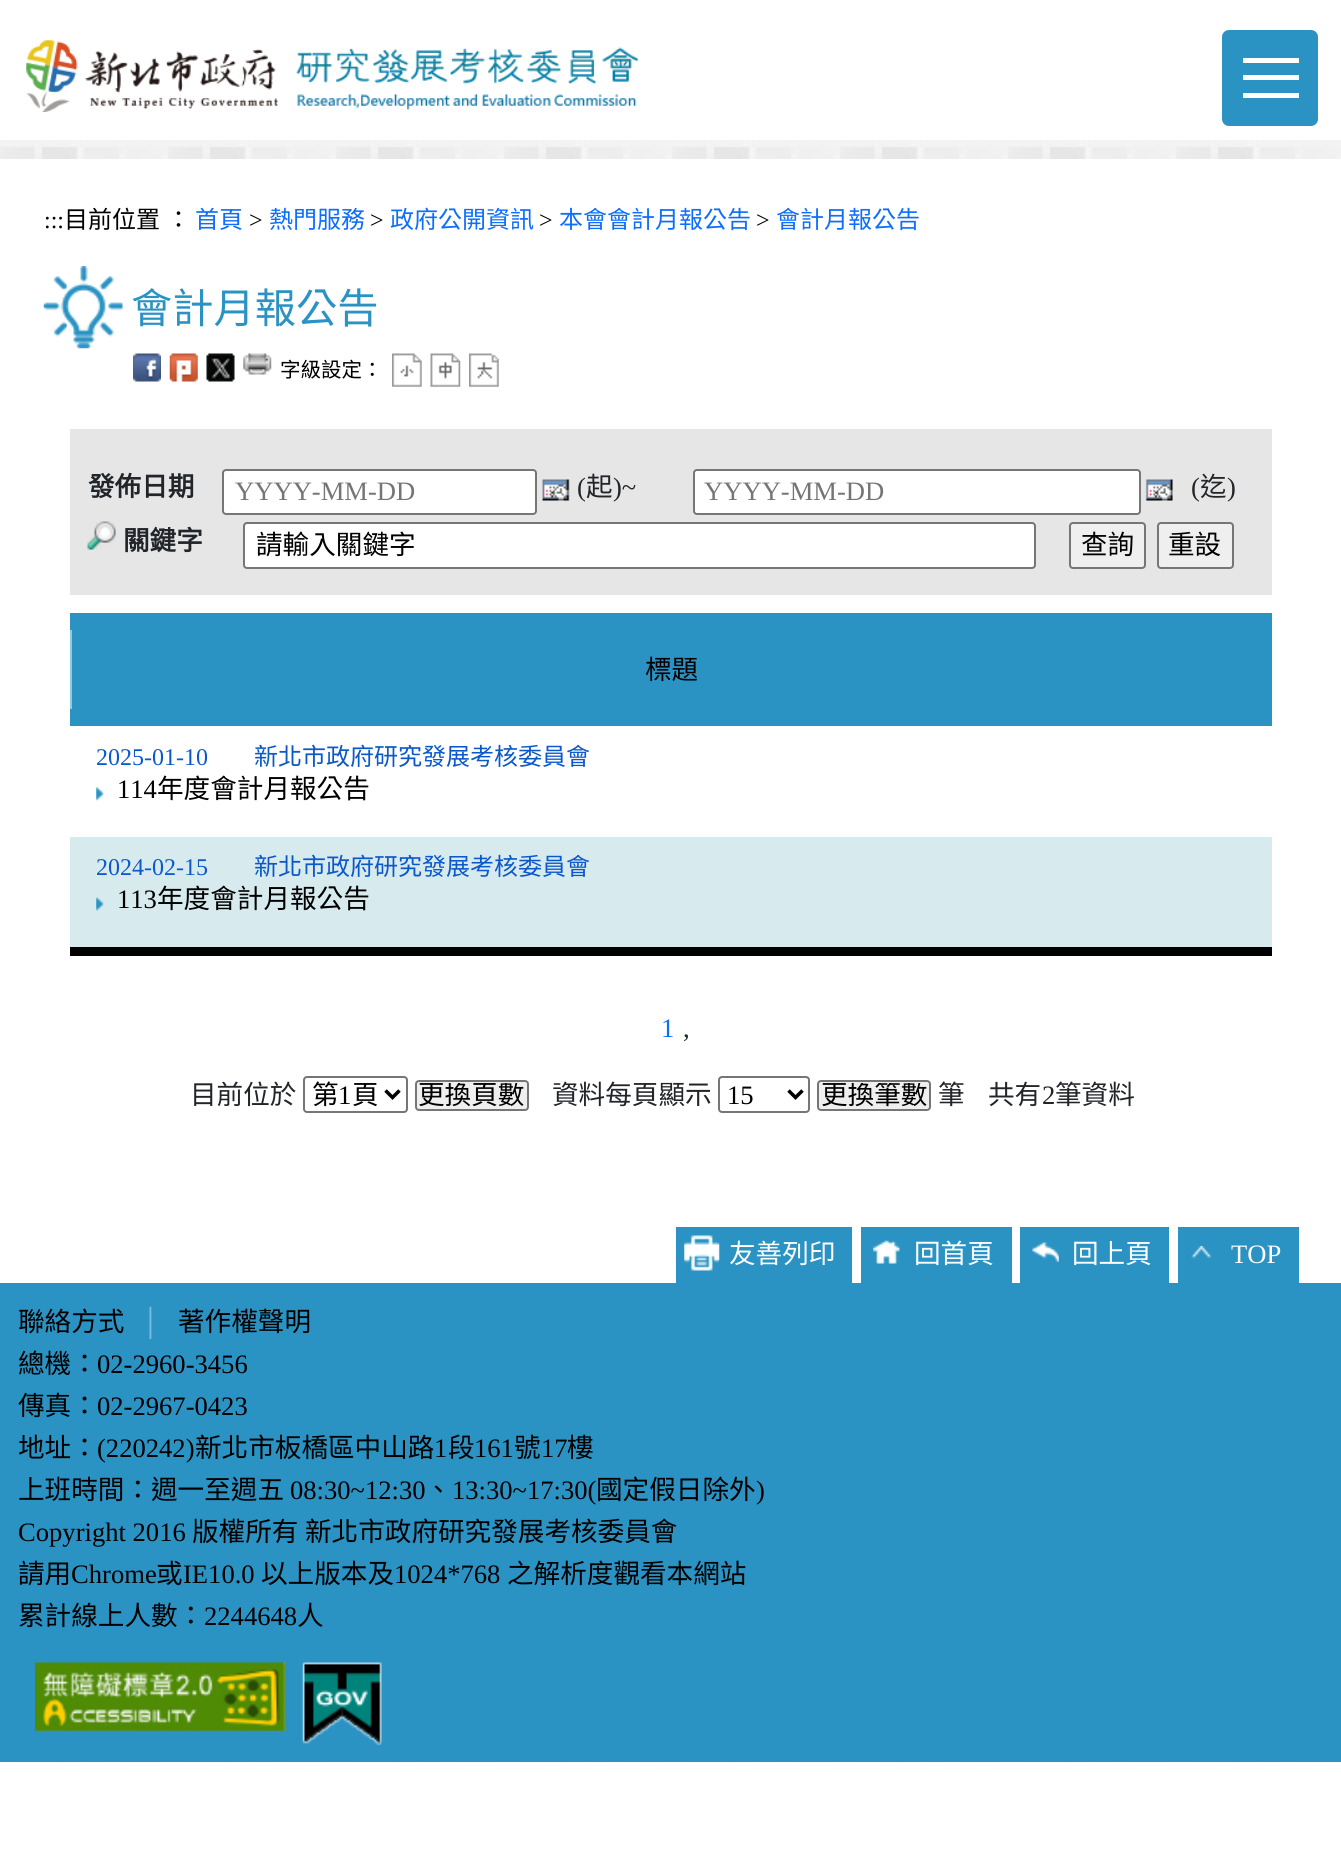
#include <cairo/cairo.h>
#include <math.h>
#include <stddef.h>


static void draw_spaced(cairo_t *cr, double x, double y, const char *s, double letter, double word) {
  cairo_move_to(cr, x, y);
  while (*s) {
    char ch[5] = {0};
    int n = 0;
    do ch[n++] = *s++; while ((*s & 0xC0) == 0x80);
    cairo_show_text(cr, ch);
    cairo_rel_move_to(cr, letter + word * (*ch == ' '), 0);
  }
}

static void rounded_rect(cairo_t *cr, double x, double y, double w, double h, double r) {
  cairo_new_sub_path(cr);
  cairo_arc(cr, x + w - r, y + h - r, r, 0, M_PI / 2);
  cairo_arc(cr, x + r, y + h - r, r, M_PI / 2, M_PI);
  cairo_arc(cr, x + r, y + r, r, M_PI, 1.5 * M_PI);
  cairo_arc(cr, x + w - r, y + r, r, 1.5 * M_PI, 2 * M_PI);
  cairo_close_path(cr);
}

static void draw_image(cairo_t *cr, const char *path, double x, double y, double w, double h) {
  cairo_surface_t *image = cairo_image_surface_create_from_png(path);
  cairo_save(cr);
  cairo_set_source_surface(cr, image, x, y);
  cairo_rectangle(cr, x, y, w, h);
  cairo_fill(cr);
  cairo_restore(cr);
  cairo_surface_destroy(image);
}

static void draw(cairo_t *cr) {
  cairo_set_source_rgb(cr, 1, 1, 1);
  cairo_paint(cr);
  draw_image(cr, "images/1.png", 0, 140, 1341, 1623);
  draw_image(cr, "images/2.png", 26, 40, 613, 72);
  cairo_set_source_rgb(cr, 43 / 255.0, 147 / 255.0, 195 / 255.0);
  rounded_rect(cr, 1222, 30, 96, 96, 7);
  cairo_fill(cr);
  cairo_set_source_rgb(cr, 1, 1, 1);
  cairo_rectangle(cr, 1243, 75, 56, 5);
  cairo_fill(cr);
  cairo_rectangle(cr, 1243, 58, 56, 5);
  cairo_fill(cr);
  cairo_rectangle(cr, 1243, 93, 56, 5);
  cairo_fill(cr);
  cairo_rectangle(cr, 0, 159, 1341, 1124);
  cairo_fill(cr);
  draw_image(cr, "images/3.png", 43, 266, 80, 83);
  draw_image(cr, "images/4.png", 133, 353, 28, 29);
  draw_image(cr, "images/5.png", 169, 353, 29, 29);
  draw_image(cr, "images/6.png", 206, 353, 29, 29);
  draw_image(cr, "images/7.png", 243, 353, 29, 22);
  draw_image(cr, "images/8.png", 392, 353, 30, 34);
  draw_image(cr, "images/9.png", 430, 353, 31, 34);
  draw_image(cr, "images/10.png", 469, 353, 30, 34);
  cairo_set_source_rgb(cr, 230 / 255.0, 230 / 255.0, 230 / 255.0);
  cairo_rectangle(cr, 70, 429, 1202, 166);
  cairo_fill(cr);
  cairo_set_source_rgb(cr, 1, 1, 1);
  rounded_rect(cr, 223, 470, 313, 44, 3);
  cairo_fill_preserve(cr);
  cairo_set_source_rgb(cr, 118 / 255.0, 118 / 255.0, 118 / 255.0);
  cairo_stroke(cr);
  draw_image(cr, "images/11.png", 542, 479, 28, 22);
  cairo_set_source_rgb(cr, 1, 1, 1);
  rounded_rect(cr, 694, 470, 446, 44, 3);
  cairo_fill_preserve(cr);
  cairo_set_source_rgb(cr, 118 / 255.0, 118 / 255.0, 118 / 255.0);
  cairo_stroke(cr);
  draw_image(cr, "images/12.png", 1145, 479, 28, 22);
  draw_image(cr, "images/13.png", 87, 521, 29, 29);
  cairo_set_source_rgb(cr, 1, 1, 1);
  rounded_rect(cr, 244, 523, 791, 45, 3);
  cairo_fill_preserve(cr);
  cairo_set_source_rgb(cr, 118 / 255.0, 118 / 255.0, 118 / 255.0);
  cairo_stroke(cr);
  cairo_set_source_rgb(cr, 239 / 255.0, 239 / 255.0, 239 / 255.0);
  rounded_rect(cr, 1070, 523, 75, 45, 3);
  cairo_fill_preserve(cr);
  cairo_set_source_rgb(cr, 118 / 255.0, 118 / 255.0, 118 / 255.0);
  cairo_stroke(cr);
  cairo_set_source_rgb(cr, 239 / 255.0, 239 / 255.0, 239 / 255.0);
  rounded_rect(cr, 1158, 523, 75, 45, 3);
  cairo_fill_preserve(cr);
  cairo_set_source_rgb(cr, 118 / 255.0, 118 / 255.0, 118 / 255.0);
  cairo_stroke(cr);
  cairo_set_source_rgb(cr, 43 / 255.0, 147 / 255.0, 195 / 255.0);
  cairo_rectangle(cr, 70, 613, 1202, 113);
  cairo_fill(cr);
  cairo_set_source_rgb(cr, 140 / 255.0, 207 / 255.0, 220 / 255.0);
  cairo_rectangle(cr, 70, 630, 2, 79);
  cairo_fill(cr);
  cairo_set_source_rgb(cr, 0, 0, 0);
  cairo_rectangle(cr, 70, 947, 1202, 9);
  cairo_fill(cr);
  draw_image(cr, "images/14.png", 96, 787, 8, 14);
  cairo_set_source_rgb(cr, 215 / 255.0, 235 / 255.0, 239 / 255.0);
  cairo_rectangle(cr, 70, 837, 1202, 110);
  cairo_fill(cr);
  draw_image(cr, "images/15.png", 96, 897, 8, 14);
  rounded_rect(cr, 304, 1077, 103, 35, 3);
  cairo_set_source_rgb(cr, 118 / 255.0, 118 / 255.0, 118 / 255.0);
  cairo_stroke(cr);
  cairo_new_path(cr);
  cairo_move_to(cr, 385.5, 1090.5);
  cairo_line_to(cr, 392.5, 1097.5);
  cairo_line_to(cr, 399.5, 1090.5);
  cairo_set_source_rgb(cr, 0, 0, 0);
  cairo_set_line_width(cr, 3.5);
  cairo_stroke(cr);
  cairo_set_source_rgb(cr, 239 / 255.0, 239 / 255.0, 239 / 255.0);
  rounded_rect(cr, 416, 1081, 112, 29, 3);
  cairo_fill_preserve(cr);
  cairo_set_source_rgb(cr, 118 / 255.0, 118 / 255.0, 118 / 255.0);
  cairo_set_line_width(cr, 2);
  cairo_stroke(cr);
  rounded_rect(cr, 719, 1077, 90, 35, 3);
  cairo_stroke(cr);
  cairo_new_path(cr);
  cairo_move_to(cr, 788.5, 1090.5);
  cairo_line_to(cr, 795.5, 1097.5);
  cairo_line_to(cr, 802.5, 1090.5);
  cairo_set_source_rgb(cr, 0, 0, 0);
  cairo_set_line_width(cr, 3.5);
  cairo_stroke(cr);
  cairo_set_source_rgb(cr, 239 / 255.0, 239 / 255.0, 239 / 255.0);
  rounded_rect(cr, 818, 1081, 112, 29, 3);
  cairo_fill_preserve(cr);
  cairo_set_source_rgb(cr, 118 / 255.0, 118 / 255.0, 118 / 255.0);
  cairo_set_line_width(cr, 2);
  cairo_stroke(cr);
  cairo_set_source_rgb(cr, 43 / 255.0, 147 / 255.0, 195 / 255.0);
  cairo_rectangle(cr, 676, 1227, 176, 56);
  cairo_fill(cr);
  draw_image(cr, "images/16.png", 684, 1235, 36, 36);
  cairo_rectangle(cr, 861, 1227, 151, 56);
  cairo_fill(cr);
  draw_image(cr, "images/17.png", 873, 1240, 27, 24);
  cairo_rectangle(cr, 1020, 1227, 149, 56);
  cairo_fill(cr);
  draw_image(cr, "images/18.png", 1032, 1242, 27, 20);
  cairo_rectangle(cr, 1178, 1227, 121, 56);
  cairo_fill(cr);
  draw_image(cr, "images/19.png", 1191, 1246, 20, 13);
  cairo_rectangle(cr, 0, 1283, 1341, 479);
  cairo_fill(cr);
  draw_image(cr, "images/20.png", 35, 1662, 251, 69);
  draw_image(cr, "images/21.png", 302, 1662, 80, 83);
  cairo_select_font_face(cr, "Liberation Serif", CAIRO_FONT_SLANT_NORMAL, CAIRO_FONT_WEIGHT_NORMAL);
  cairo_set_font_size(cr, 24);
  cairo_set_source_rgb(cr, 0, 0, 0);
  cairo_move_to(cr, 44, 228);
  cairo_show_text(cr, ":::");
  cairo_select_font_face(cr, "Noto Sans CJK TC", CAIRO_FONT_SLANT_NORMAL, CAIRO_FONT_WEIGHT_NORMAL);
  draw_spaced(cr, 64, 228, "目前位置 ：", 0, 1);
  cairo_set_source_rgb(cr, 13 / 255.0, 110 / 255.0, 253 / 255.0);
  cairo_move_to(cr, 195, 228);
  cairo_show_text(cr, "首頁");
  cairo_select_font_face(cr, "Liberation Serif", CAIRO_FONT_SLANT_NORMAL, CAIRO_FONT_WEIGHT_NORMAL);
  cairo_set_source_rgb(cr, 0, 0, 0);
  cairo_move_to(cr, 249, 228);
  cairo_show_text(cr, ">");
  cairo_select_font_face(cr, "Noto Sans CJK TC", CAIRO_FONT_SLANT_NORMAL, CAIRO_FONT_WEIGHT_NORMAL);
  cairo_set_source_rgb(cr, 13 / 255.0, 110 / 255.0, 253 / 255.0);
  cairo_move_to(cr, 269, 228);
  cairo_show_text(cr, "熱門服務");
  cairo_select_font_face(cr, "Liberation Serif", CAIRO_FONT_SLANT_NORMAL, CAIRO_FONT_WEIGHT_NORMAL);
  cairo_set_source_rgb(cr, 0, 0, 0);
  cairo_move_to(cr, 370, 228);
  cairo_show_text(cr, ">");
  cairo_select_font_face(cr, "Noto Sans CJK TC", CAIRO_FONT_SLANT_NORMAL, CAIRO_FONT_WEIGHT_NORMAL);
  cairo_set_source_rgb(cr, 13 / 255.0, 110 / 255.0, 253 / 255.0);
  cairo_move_to(cr, 390, 228);
  cairo_show_text(cr, "政府公開資訊");
  cairo_select_font_face(cr, "Liberation Serif", CAIRO_FONT_SLANT_NORMAL, CAIRO_FONT_WEIGHT_NORMAL);
  cairo_set_source_rgb(cr, 0, 0, 0);
  cairo_move_to(cr, 539, 228);
  cairo_show_text(cr, ">");
  cairo_select_font_face(cr, "Noto Sans CJK TC", CAIRO_FONT_SLANT_NORMAL, CAIRO_FONT_WEIGHT_NORMAL);
  cairo_set_source_rgb(cr, 13 / 255.0, 110 / 255.0, 253 / 255.0);
  cairo_move_to(cr, 559, 228);
  cairo_show_text(cr, "本會會計月報公告");
  cairo_select_font_face(cr, "Liberation Serif", CAIRO_FONT_SLANT_NORMAL, CAIRO_FONT_WEIGHT_NORMAL);
  cairo_set_source_rgb(cr, 0, 0, 0);
  cairo_move_to(cr, 756, 228);
  cairo_show_text(cr, ">");
  cairo_select_font_face(cr, "Noto Sans CJK TC", CAIRO_FONT_SLANT_NORMAL, CAIRO_FONT_WEIGHT_NORMAL);
  cairo_set_source_rgb(cr, 13 / 255.0, 110 / 255.0, 253 / 255.0);
  cairo_move_to(cr, 776, 228);
  cairo_show_text(cr, "會計月報公告");
  cairo_set_font_size(cr, 41.25);
  cairo_set_source_rgb(cr, 43 / 255.0, 147 / 255.0, 195 / 255.0);
  cairo_move_to(cr, 131, 323);
  cairo_show_text(cr, "會計月報公告");
  cairo_set_font_size(cr, 20.5);
  cairo_set_source_rgb(cr, 0, 0, 0);
  cairo_move_to(cr, 280, 377);
  cairo_show_text(cr, "字級設定：");
  cairo_select_font_face(cr, "Noto Sans CJK TC", CAIRO_FONT_SLANT_NORMAL, CAIRO_FONT_WEIGHT_BOLD);
  cairo_set_font_size(cr, 26.6);
  cairo_set_source_rgb(cr, 33 / 255.0, 37 / 255.0, 41 / 255.0);
  cairo_move_to(cr, 88, 496);
  cairo_show_text(cr, "發佈日期");
  cairo_select_font_face(cr, "Liberation Serif", CAIRO_FONT_SLANT_NORMAL, CAIRO_FONT_WEIGHT_NORMAL);
  cairo_set_source_rgb(cr, 117 / 255.0, 117 / 255.0, 117 / 255.0);
  cairo_move_to(cr, 235, 500);
  cairo_show_text(cr, "YYYY-MM-DD");
  cairo_set_source_rgb(cr, 33 / 255.0, 37 / 255.0, 41 / 255.0);
  cairo_move_to(cr, 577, 496);
  cairo_show_text(cr, "(");
  cairo_select_font_face(cr, "Noto Sans CJK TC", CAIRO_FONT_SLANT_NORMAL, CAIRO_FONT_WEIGHT_NORMAL);
  cairo_move_to(cr, 586, 496);
  cairo_show_text(cr, "起");
  cairo_select_font_face(cr, "Liberation Serif", CAIRO_FONT_SLANT_NORMAL, CAIRO_FONT_WEIGHT_NORMAL);
  cairo_move_to(cr, 613, 496);
  cairo_show_text(cr, ")~");
  cairo_set_source_rgb(cr, 117 / 255.0, 117 / 255.0, 117 / 255.0);
  cairo_move_to(cr, 704, 500);
  cairo_show_text(cr, "YYYY-MM-DD");
  cairo_set_source_rgb(cr, 33 / 255.0, 37 / 255.0, 41 / 255.0);
  cairo_move_to(cr, 1191, 496);
  cairo_show_text(cr, "(");
  cairo_select_font_face(cr, "Noto Sans CJK TC", CAIRO_FONT_SLANT_NORMAL, CAIRO_FONT_WEIGHT_NORMAL);
  cairo_move_to(cr, 1200, 496);
  cairo_show_text(cr, "迄");
  cairo_select_font_face(cr, "Liberation Serif", CAIRO_FONT_SLANT_NORMAL, CAIRO_FONT_WEIGHT_NORMAL);
  cairo_move_to(cr, 1227, 496);
  cairo_show_text(cr, ")");
  cairo_select_font_face(cr, "Noto Sans CJK TC", CAIRO_FONT_SLANT_NORMAL, CAIRO_FONT_WEIGHT_BOLD);
  cairo_move_to(cr, 123, 550);
  cairo_show_text(cr, "關鍵字");
  cairo_select_font_face(cr, "Noto Sans CJK TC", CAIRO_FONT_SLANT_NORMAL, CAIRO_FONT_WEIGHT_NORMAL);
  cairo_set_source_rgb(cr, 0, 0, 0);
  cairo_move_to(cr, 256, 554);
  cairo_show_text(cr, "請輸入關鍵字");
  cairo_move_to(cr, 1081, 554);
  cairo_show_text(cr, "查詢");
  cairo_move_to(cr, 1168, 554);
  cairo_show_text(cr, "重設");
  cairo_move_to(cr, 645, 679);
  cairo_show_text(cr, "標題");
  cairo_select_font_face(cr, "Liberation Serif", CAIRO_FONT_SLANT_NORMAL, CAIRO_FONT_WEIGHT_NORMAL);
  cairo_set_font_size(cr, 24);
  cairo_set_source_rgb(cr, 10 / 255.0, 88 / 255.0, 202 / 255.0);
  cairo_move_to(cr, 96, 765);
  cairo_show_text(cr, "2025-01-10");
  cairo_select_font_face(cr, "Noto Sans CJK TC", CAIRO_FONT_SLANT_NORMAL, CAIRO_FONT_WEIGHT_NORMAL);
  cairo_move_to(cr, 254, 765);
  cairo_show_text(cr, "新北市政府研究發展考核委員會");
  cairo_select_font_face(cr, "Liberation Serif", CAIRO_FONT_SLANT_NORMAL, CAIRO_FONT_WEIGHT_NORMAL);
  cairo_set_font_size(cr, 26.6);
  cairo_set_source_rgb(cr, 0, 0, 0);
  cairo_move_to(cr, 117, 798);
  cairo_show_text(cr, "114");
  cairo_select_font_face(cr, "Noto Sans CJK TC", CAIRO_FONT_SLANT_NORMAL, CAIRO_FONT_WEIGHT_NORMAL);
  cairo_move_to(cr, 157, 798);
  cairo_show_text(cr, "年度會計月報公告");
  cairo_select_font_face(cr, "Liberation Serif", CAIRO_FONT_SLANT_NORMAL, CAIRO_FONT_WEIGHT_NORMAL);
  cairo_set_font_size(cr, 24);
  cairo_set_source_rgb(cr, 10 / 255.0, 88 / 255.0, 202 / 255.0);
  cairo_move_to(cr, 96, 875);
  cairo_show_text(cr, "2024-02-15");
  cairo_select_font_face(cr, "Noto Sans CJK TC", CAIRO_FONT_SLANT_NORMAL, CAIRO_FONT_WEIGHT_NORMAL);
  cairo_move_to(cr, 254, 875);
  cairo_show_text(cr, "新北市政府研究發展考核委員會");
  cairo_select_font_face(cr, "Liberation Serif", CAIRO_FONT_SLANT_NORMAL, CAIRO_FONT_WEIGHT_NORMAL);
  cairo_set_font_size(cr, 26.6);
  cairo_set_source_rgb(cr, 0, 0, 0);
  cairo_move_to(cr, 117, 908);
  cairo_show_text(cr, "113");
  cairo_select_font_face(cr, "Noto Sans CJK TC", CAIRO_FONT_SLANT_NORMAL, CAIRO_FONT_WEIGHT_NORMAL);
  cairo_move_to(cr, 157, 908);
  cairo_show_text(cr, "年度會計月報公告");
  cairo_select_font_face(cr, "Liberation Serif", CAIRO_FONT_SLANT_NORMAL, CAIRO_FONT_WEIGHT_NORMAL);
  cairo_set_source_rgb(cr, 13 / 255.0, 110 / 255.0, 253 / 255.0);
  cairo_move_to(cr, 661, 1037);
  cairo_show_text(cr, "1");
  cairo_set_source_rgb(cr, 33 / 255.0, 37 / 255.0, 41 / 255.0);
  cairo_move_to(cr, 683, 1037);
  cairo_show_text(cr, ",");
  cairo_select_font_face(cr, "Noto Sans CJK TC", CAIRO_FONT_SLANT_NORMAL, CAIRO_FONT_WEIGHT_NORMAL);
  cairo_move_to(cr, 190, 1104);
  cairo_show_text(cr, "目前位於");
  cairo_set_source_rgb(cr, 0, 0, 0);
  cairo_move_to(cr, 312, 1104);
  cairo_show_text(cr, "第");
  cairo_select_font_face(cr, "Liberation Serif", CAIRO_FONT_SLANT_NORMAL, CAIRO_FONT_WEIGHT_NORMAL);
  cairo_move_to(cr, 338, 1104);
  cairo_show_text(cr, "1");
  cairo_select_font_face(cr, "Noto Sans CJK TC", CAIRO_FONT_SLANT_NORMAL, CAIRO_FONT_WEIGHT_NORMAL);
  cairo_move_to(cr, 352, 1104);
  cairo_show_text(cr, "頁");
  cairo_save(cr);
  cairo_rectangle(cr, 418, 1083, 107, 25);
  cairo_clip(cr);
  cairo_move_to(cr, 418, 1104);
  cairo_show_text(cr, "更換頁數");
  cairo_restore(cr);
  cairo_set_source_rgb(cr, 33 / 255.0, 37 / 255.0, 41 / 255.0);
  cairo_move_to(cr, 552, 1104);
  cairo_show_text(cr, "資料每頁顯示");
  cairo_select_font_face(cr, "Liberation Serif", CAIRO_FONT_SLANT_NORMAL, CAIRO_FONT_WEIGHT_NORMAL);
  cairo_set_source_rgb(cr, 0, 0, 0);
  cairo_move_to(cr, 727, 1104);
  cairo_show_text(cr, "15");
  cairo_save(cr);
  cairo_rectangle(cr, 821, 1083, 107, 25);
  cairo_clip(cr);
  cairo_select_font_face(cr, "Noto Sans CJK TC", CAIRO_FONT_SLANT_NORMAL, CAIRO_FONT_WEIGHT_NORMAL);
  cairo_move_to(cr, 821, 1104);
  cairo_show_text(cr, "更換筆數");
  cairo_restore(cr);
  cairo_select_font_face(cr, "Noto Sans CJK TC", CAIRO_FONT_SLANT_NORMAL, CAIRO_FONT_WEIGHT_NORMAL);
  cairo_set_source_rgb(cr, 33 / 255.0, 37 / 255.0, 41 / 255.0);
  cairo_move_to(cr, 938, 1104);
  cairo_show_text(cr, "筆");
  cairo_move_to(cr, 988, 1104);
  cairo_show_text(cr, "共有");
  cairo_select_font_face(cr, "Liberation Serif", CAIRO_FONT_SLANT_NORMAL, CAIRO_FONT_WEIGHT_NORMAL);
  cairo_move_to(cr, 1042, 1104);
  cairo_show_text(cr, "2");
  cairo_select_font_face(cr, "Noto Sans CJK TC", CAIRO_FONT_SLANT_NORMAL, CAIRO_FONT_WEIGHT_NORMAL);
  cairo_move_to(cr, 1055, 1104);
  cairo_show_text(cr, "筆資料");
  cairo_set_source_rgb(cr, 1, 1, 1);
  cairo_move_to(cr, 729, 1263);
  cairo_show_text(cr, "友善列印");
  cairo_move_to(cr, 914, 1263);
  cairo_show_text(cr, "回首頁");
  cairo_move_to(cr, 1072, 1263);
  cairo_show_text(cr, "回上頁");
  cairo_select_font_face(cr, "Liberation Serif", CAIRO_FONT_SLANT_NORMAL, CAIRO_FONT_WEIGHT_NORMAL);
  cairo_move_to(cr, 1231, 1263);
  cairo_show_text(cr, "TOP");
  cairo_select_font_face(cr, "Noto Sans CJK TC", CAIRO_FONT_SLANT_NORMAL, CAIRO_FONT_WEIGHT_NORMAL);
  cairo_set_source_rgb(cr, 0, 0, 0);
  cairo_move_to(cr, 18, 1331);
  cairo_show_text(cr, "聯絡方式");
  cairo_select_font_face(cr, "Liberation Serif", CAIRO_FONT_SLANT_NORMAL, CAIRO_FONT_WEIGHT_NORMAL);
  cairo_set_source_rgb(cr, 118 / 255.0, 187 / 255.0, 224 / 255.0);
  cairo_move_to(cr, 141, 1331);
  cairo_show_text(cr, "│");
  cairo_select_font_face(cr, "Noto Sans CJK TC", CAIRO_FONT_SLANT_NORMAL, CAIRO_FONT_WEIGHT_NORMAL);
  cairo_set_source_rgb(cr, 0, 0, 0);
  cairo_move_to(cr, 178, 1331);
  cairo_show_text(cr, "著作權聲明");
  cairo_move_to(cr, 18, 1373);
  cairo_show_text(cr, "總機：");
  cairo_select_font_face(cr, "Liberation Serif", CAIRO_FONT_SLANT_NORMAL, CAIRO_FONT_WEIGHT_NORMAL);
  cairo_move_to(cr, 97, 1373);
  cairo_show_text(cr, "02-2960-3456");
  cairo_select_font_face(cr, "Noto Sans CJK TC", CAIRO_FONT_SLANT_NORMAL, CAIRO_FONT_WEIGHT_NORMAL);
  cairo_move_to(cr, 18, 1415);
  cairo_show_text(cr, "傳真：");
  cairo_select_font_face(cr, "Liberation Serif", CAIRO_FONT_SLANT_NORMAL, CAIRO_FONT_WEIGHT_NORMAL);
  cairo_move_to(cr, 97, 1415);
  cairo_show_text(cr, "02-2967-0423");
  cairo_select_font_face(cr, "Noto Sans CJK TC", CAIRO_FONT_SLANT_NORMAL, CAIRO_FONT_WEIGHT_NORMAL);
  cairo_move_to(cr, 18, 1457);
  cairo_show_text(cr, "地址：");
  cairo_select_font_face(cr, "Liberation Serif", CAIRO_FONT_SLANT_NORMAL, CAIRO_FONT_WEIGHT_NORMAL);
  cairo_move_to(cr, 97, 1457);
  cairo_show_text(cr, "(220242)");
  cairo_select_font_face(cr, "Noto Sans CJK TC", CAIRO_FONT_SLANT_NORMAL, CAIRO_FONT_WEIGHT_NORMAL);
  cairo_move_to(cr, 195, 1457);
  cairo_show_text(cr, "新北市板橋區中山路");
  cairo_select_font_face(cr, "Liberation Serif", CAIRO_FONT_SLANT_NORMAL, CAIRO_FONT_WEIGHT_NORMAL);
  cairo_move_to(cr, 434, 1457);
  cairo_show_text(cr, "1");
  cairo_select_font_face(cr, "Noto Sans CJK TC", CAIRO_FONT_SLANT_NORMAL, CAIRO_FONT_WEIGHT_NORMAL);
  cairo_move_to(cr, 448, 1457);
  cairo_show_text(cr, "段");
  cairo_select_font_face(cr, "Liberation Serif", CAIRO_FONT_SLANT_NORMAL, CAIRO_FONT_WEIGHT_NORMAL);
  cairo_move_to(cr, 474, 1457);
  cairo_show_text(cr, "161");
  cairo_select_font_face(cr, "Noto Sans CJK TC", CAIRO_FONT_SLANT_NORMAL, CAIRO_FONT_WEIGHT_NORMAL);
  cairo_move_to(cr, 514, 1457);
  cairo_show_text(cr, "號");
  cairo_select_font_face(cr, "Liberation Serif", CAIRO_FONT_SLANT_NORMAL, CAIRO_FONT_WEIGHT_NORMAL);
  cairo_move_to(cr, 541, 1457);
  cairo_show_text(cr, "17");
  cairo_select_font_face(cr, "Noto Sans CJK TC", CAIRO_FONT_SLANT_NORMAL, CAIRO_FONT_WEIGHT_NORMAL);
  cairo_move_to(cr, 567, 1457);
  cairo_show_text(cr, "樓");
  cairo_move_to(cr, 18, 1499);
  cairo_show_text(cr, "上班時間：週一至週五");
  cairo_select_font_face(cr, "Liberation Serif", CAIRO_FONT_SLANT_NORMAL, CAIRO_FONT_WEIGHT_NORMAL);
  cairo_move_to(cr, 290, 1499);
  cairo_show_text(cr, "08:30~12:30");
  cairo_select_font_face(cr, "Noto Sans CJK TC", CAIRO_FONT_SLANT_NORMAL, CAIRO_FONT_WEIGHT_NORMAL);
  cairo_move_to(cr, 425, 1499);
  cairo_show_text(cr, "、");
  cairo_select_font_face(cr, "Liberation Serif", CAIRO_FONT_SLANT_NORMAL, CAIRO_FONT_WEIGHT_NORMAL);
  cairo_move_to(cr, 452, 1499);
  cairo_show_text(cr, "13:30~17:30(");
  cairo_select_font_face(cr, "Noto Sans CJK TC", CAIRO_FONT_SLANT_NORMAL, CAIRO_FONT_WEIGHT_NORMAL);
  cairo_move_to(cr, 596, 1499);
  cairo_show_text(cr, "國定假日除外");
  cairo_select_font_face(cr, "Liberation Serif", CAIRO_FONT_SLANT_NORMAL, CAIRO_FONT_WEIGHT_NORMAL);
  cairo_move_to(cr, 756, 1499);
  cairo_show_text(cr, ")");
  cairo_move_to(cr, 18, 1541);
  cairo_show_text(cr, "Copyright 2016");
  cairo_select_font_face(cr, "Noto Sans CJK TC", CAIRO_FONT_SLANT_NORMAL, CAIRO_FONT_WEIGHT_NORMAL);
  cairo_move_to(cr, 192, 1541);
  cairo_show_text(cr, "版權所有");
  cairo_move_to(cr, 305, 1541);
  cairo_show_text(cr, "新北市政府研究發展考核委員會");
  cairo_move_to(cr, 18, 1583);
  cairo_show_text(cr, "請用");
  cairo_select_font_face(cr, "Liberation Serif", CAIRO_FONT_SLANT_NORMAL, CAIRO_FONT_WEIGHT_NORMAL);
  cairo_move_to(cr, 71, 1583);
  cairo_show_text(cr, "Chrome");
  cairo_select_font_face(cr, "Noto Sans CJK TC", CAIRO_FONT_SLANT_NORMAL, CAIRO_FONT_WEIGHT_NORMAL);
  cairo_move_to(cr, 156, 1583);
  cairo_show_text(cr, "或");
  cairo_select_font_face(cr, "Liberation Serif", CAIRO_FONT_SLANT_NORMAL, CAIRO_FONT_WEIGHT_NORMAL);
  cairo_move_to(cr, 183, 1583);
  cairo_show_text(cr, "IE10.0");
  cairo_select_font_face(cr, "Noto Sans CJK TC", CAIRO_FONT_SLANT_NORMAL, CAIRO_FONT_WEIGHT_NORMAL);
  cairo_move_to(cr, 261, 1583);
  cairo_show_text(cr, "以上版本及");
  cairo_select_font_face(cr, "Liberation Serif", CAIRO_FONT_SLANT_NORMAL, CAIRO_FONT_WEIGHT_NORMAL);
  cairo_move_to(cr, 394, 1583);
  cairo_show_text(cr, "1024*768");
  cairo_select_font_face(cr, "Noto Sans CJK TC", CAIRO_FONT_SLANT_NORMAL, CAIRO_FONT_WEIGHT_NORMAL);
  cairo_move_to(cr, 507, 1583);
  cairo_show_text(cr, "之解析度觀看本網站");
  cairo_move_to(cr, 18, 1625);
  cairo_show_text(cr, "累計線上人數：");
  cairo_select_font_face(cr, "Liberation Serif", CAIRO_FONT_SLANT_NORMAL, CAIRO_FONT_WEIGHT_NORMAL);
  cairo_move_to(cr, 204, 1625);
  cairo_show_text(cr, "2244648");
  cairo_select_font_face(cr, "Noto Sans CJK TC", CAIRO_FONT_SLANT_NORMAL, CAIRO_FONT_WEIGHT_NORMAL);
  cairo_move_to(cr, 297, 1625);
  cairo_show_text(cr, "人");
}

int main(void) {
  cairo_surface_t *surface = cairo_image_surface_create(CAIRO_FORMAT_RGB24, 1341, 1851);
  cairo_t *cr = cairo_create(surface);
  cairo_font_options_t *options = cairo_font_options_create();
  cairo_font_options_set_hint_metrics(options, CAIRO_HINT_METRICS_OFF);
  cairo_font_options_set_hint_style(options, CAIRO_HINT_STYLE_NONE);
  cairo_set_font_options(cr, options);
  cairo_set_miter_limit(cr, 4);
  draw(cr);
  cairo_surface_write_to_png(surface, "out.png");
  cairo_font_options_destroy(options);
  cairo_destroy(cr);
  cairo_surface_destroy(surface);
  return 0;
}
